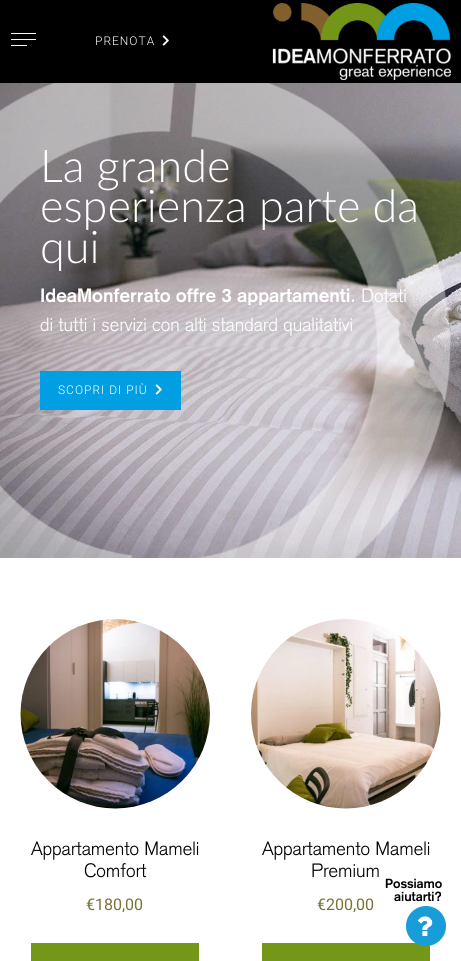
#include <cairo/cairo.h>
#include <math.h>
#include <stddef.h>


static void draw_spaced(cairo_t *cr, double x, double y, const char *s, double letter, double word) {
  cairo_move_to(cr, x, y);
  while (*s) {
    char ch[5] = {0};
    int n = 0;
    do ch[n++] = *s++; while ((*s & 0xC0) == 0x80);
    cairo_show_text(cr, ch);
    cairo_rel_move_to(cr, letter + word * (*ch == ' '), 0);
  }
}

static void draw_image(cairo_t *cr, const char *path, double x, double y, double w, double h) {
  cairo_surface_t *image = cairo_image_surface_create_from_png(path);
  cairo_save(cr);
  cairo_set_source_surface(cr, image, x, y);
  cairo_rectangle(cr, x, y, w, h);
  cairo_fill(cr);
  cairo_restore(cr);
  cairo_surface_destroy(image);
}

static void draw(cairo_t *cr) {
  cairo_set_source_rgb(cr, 1, 1, 1);
  cairo_paint(cr);
  cairo_set_source_rgb(cr, 0, 0, 0);
  cairo_rectangle(cr, 0, 0, 461, 83);
  cairo_fill(cr);
  cairo_set_source_rgb(cr, 1, 250 / 255.0, 245 / 255.0);
  cairo_rectangle(cr, 11, 33, 25, 1);
  cairo_fill(cr);
  cairo_rectangle(cr, 11, 39, 25, 1);
  cairo_fill(cr);
  cairo_rectangle(cr, 11, 45, 16, 1);
  cairo_fill(cr);
  draw_image(cr, "images/1.png", 162, 35, 7, 11);
  draw_image(cr, "images/2.png", 272, 3, 179, 77);
  draw_image(cr, "images/3.png", 0, 83, 461, 475);
  draw_image(cr, "images/4.png", 0, 83, 451, 475);
  cairo_set_source_rgb(cr, 0, 159 / 255.0, 227 / 255.0);
  cairo_rectangle(cr, 40, 371, 141, 39);
  cairo_fill(cr);
  draw_image(cr, "images/5.png", 155, 384, 7, 11);
  draw_image(cr, "images/6.png", 20, 619, 190, 190);
  cairo_set_source_rgb(cr, 116 / 255.0, 151 / 255.0, 25 / 255.0);
  cairo_rectangle(cr, 31, 943, 168, 18);
  cairo_fill(cr);
  draw_image(cr, "images/7.png", 251, 619, 190, 190);
  cairo_rectangle(cr, 262, 943, 168, 18);
  cairo_fill(cr);
  draw_image(cr, "images/8.png", 406, 906, 40, 40);
  cairo_select_font_face(cr, "Roboto Light", CAIRO_FONT_SLANT_NORMAL, CAIRO_FONT_WEIGHT_NORMAL);
  cairo_set_font_size(cr, 12);
  cairo_set_source_rgb(cr, 1, 1, 1);
  draw_spaced(cr, 95, 45, "PRENOTA", 1, 0);
  cairo_select_font_face(cr, "Lato Light", CAIRO_FONT_SLANT_NORMAL, CAIRO_FONT_WEIGHT_NORMAL);
  cairo_set_font_size(cr, 45);
  cairo_move_to(cr, 40, 182);
  cairo_show_text(cr, "La grande");
  cairo_move_to(cr, 40, 222);
  cairo_show_text(cr, "esperienza parte da");
  cairo_move_to(cr, 40, 263);
  cairo_show_text(cr, "qui");
  cairo_select_font_face(cr, "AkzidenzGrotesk", CAIRO_FONT_SLANT_NORMAL, CAIRO_FONT_WEIGHT_BOLD);
  cairo_set_font_size(cr, 19);
  cairo_move_to(cr, 40, 302);
  cairo_show_text(cr, "IdeaMonferrato offre 3 appartamenti.");
  cairo_select_font_face(cr, "AkzidenzGrotesk Light", CAIRO_FONT_SLANT_NORMAL, CAIRO_FONT_WEIGHT_NORMAL);
  cairo_move_to(cr, 361, 302);
  cairo_show_text(cr, "Dotati");
  cairo_move_to(cr, 40, 331);
  cairo_show_text(cr, "di tutti i servizi con alti standard qualitativi");
  cairo_select_font_face(cr, "Roboto Light", CAIRO_FONT_SLANT_NORMAL, CAIRO_FONT_WEIGHT_NORMAL);
  cairo_set_font_size(cr, 12);
  draw_spaced(cr, 58, 394, "SCOPRI DI PIÙ", 1, 0);
  cairo_select_font_face(cr, "AkzidenzGrotesk Light", CAIRO_FONT_SLANT_NORMAL, CAIRO_FONT_WEIGHT_NORMAL);
  cairo_set_font_size(cr, 19);
  cairo_set_source_rgb(cr, 0, 0, 0);
  cairo_move_to(cr, 31, 855);
  cairo_show_text(cr, "Appartamento Mameli");
  cairo_move_to(cr, 84, 877);
  cairo_show_text(cr, "Comfort");
  cairo_select_font_face(cr, "Roboto", CAIRO_FONT_SLANT_NORMAL, CAIRO_FONT_WEIGHT_NORMAL);
  cairo_set_font_size(cr, 16);
  cairo_set_source_rgb(cr, 119 / 255.0, 115 / 255.0, 53 / 255.0);
  cairo_move_to(cr, 86, 910);
  cairo_show_text(cr, "€180,00");
  cairo_select_font_face(cr, "AkzidenzGrotesk Light", CAIRO_FONT_SLANT_NORMAL, CAIRO_FONT_WEIGHT_NORMAL);
  cairo_set_font_size(cr, 19);
  cairo_set_source_rgb(cr, 0, 0, 0);
  cairo_move_to(cr, 262, 855);
  cairo_show_text(cr, "Appartamento Mameli");
  cairo_move_to(cr, 311, 877);
  cairo_show_text(cr, "Premium");
  cairo_select_font_face(cr, "Roboto", CAIRO_FONT_SLANT_NORMAL, CAIRO_FONT_WEIGHT_NORMAL);
  cairo_set_font_size(cr, 16);
  cairo_set_source_rgb(cr, 119 / 255.0, 115 / 255.0, 53 / 255.0);
  cairo_move_to(cr, 317, 910);
  cairo_show_text(cr, "€200,00");
  cairo_select_font_face(cr, "AkzidenzGrotesk", CAIRO_FONT_SLANT_NORMAL, CAIRO_FONT_WEIGHT_BOLD);
  cairo_set_font_size(cr, 13);
  cairo_set_source_rgb(cr, 0, 0, 0);
  cairo_move_to(cr, 385, 888);
  cairo_show_text(cr, "Possiamo");
  cairo_move_to(cr, 394, 901);
  cairo_show_text(cr, "aiutarti?");
}

int main(void) {
  cairo_surface_t *surface = cairo_image_surface_create(CAIRO_FORMAT_RGB24, 461, 961);
  cairo_t *cr = cairo_create(surface);
  cairo_font_options_t *options = cairo_font_options_create();
  cairo_font_options_set_hint_metrics(options, CAIRO_HINT_METRICS_OFF);
  cairo_font_options_set_hint_style(options, CAIRO_HINT_STYLE_NONE);
  cairo_set_font_options(cr, options);
  cairo_set_miter_limit(cr, 4);
  draw(cr);
  cairo_surface_write_to_png(surface, "out.png");
  cairo_font_options_destroy(options);
  cairo_destroy(cr);
  cairo_surface_destroy(surface);
  return 0;
}
